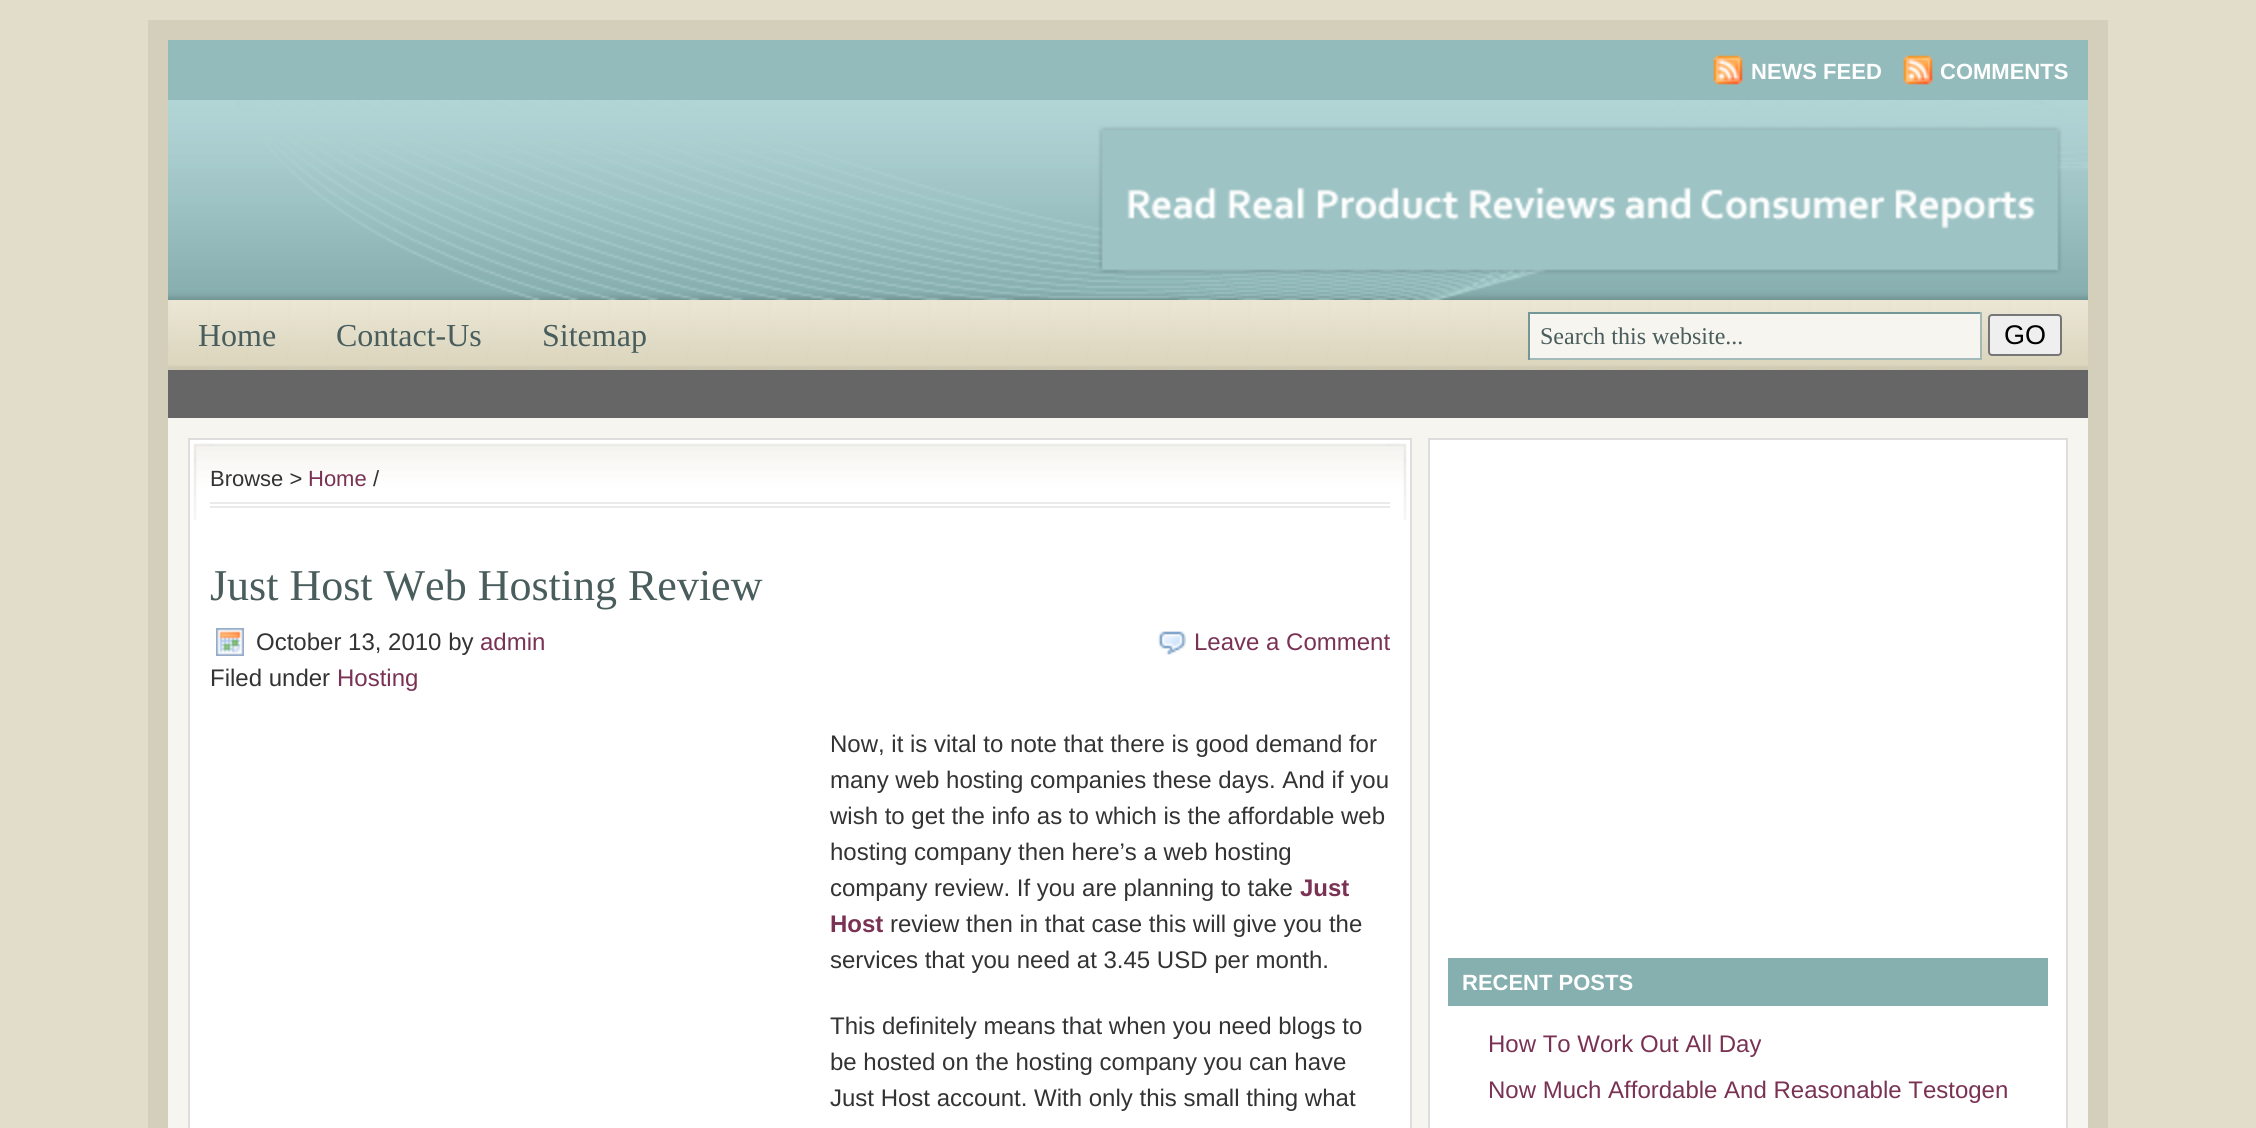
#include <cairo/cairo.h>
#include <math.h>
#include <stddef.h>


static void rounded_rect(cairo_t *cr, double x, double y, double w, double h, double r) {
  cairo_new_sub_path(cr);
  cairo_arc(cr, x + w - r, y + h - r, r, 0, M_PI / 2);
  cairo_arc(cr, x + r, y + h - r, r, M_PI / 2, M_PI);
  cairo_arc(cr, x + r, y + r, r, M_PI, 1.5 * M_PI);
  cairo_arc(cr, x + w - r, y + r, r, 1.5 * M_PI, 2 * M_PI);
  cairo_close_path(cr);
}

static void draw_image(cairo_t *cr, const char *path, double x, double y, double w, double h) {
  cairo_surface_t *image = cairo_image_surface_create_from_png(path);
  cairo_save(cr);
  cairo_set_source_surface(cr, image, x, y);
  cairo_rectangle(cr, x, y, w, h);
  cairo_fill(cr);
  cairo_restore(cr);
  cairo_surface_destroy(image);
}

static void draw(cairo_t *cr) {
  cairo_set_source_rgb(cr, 226 / 255.0, 221 / 255.0, 203 / 255.0);
  cairo_paint(cr);
  cairo_set_source_rgb(cr, 247 / 255.0, 245 / 255.0, 239 / 255.0);
  cairo_rectangle(cr, 168, 418, 1920, 710);
  cairo_fill(cr);
  cairo_rectangle(cr, 158, 30, 1940, 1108);
  cairo_set_source_rgb(cr, 212 / 255.0, 207 / 255.0, 187 / 255.0);
  cairo_set_line_width(cr, 20);
  cairo_stroke(cr);
  cairo_set_source_rgb(cr, 147 / 255.0, 187 / 255.0, 188 / 255.0);
  cairo_rectangle(cr, 168, 40, 1920, 60);
  cairo_fill(cr);
  draw_image(cr, "images/1.png", 1713, 55, 30, 30);
  draw_image(cr, "images/1.png", 1903, 55, 30, 30);
  draw_image(cr, "images/2.png", 168, 100, 1920, 200);
  draw_image(cr, "images/3.png", 168, 300, 1920, 70);
  cairo_set_source_rgb(cr, 247 / 255.0, 245 / 255.0, 239 / 255.0);
  cairo_rectangle(cr, 1530, 314, 450, 44);
  cairo_fill(cr);
  cairo_set_source_rgb(cr, 117 / 255.0, 150 / 255.0, 151 / 255.0);
  cairo_rectangle(cr, 1528, 312, 454, 2);
  cairo_fill(cr);
  cairo_set_source_rgb(cr, 163 / 255.0, 186 / 255.0, 185 / 255.0);
  cairo_rectangle(cr, 1980, 312, 2, 48);
  cairo_fill(cr);
  cairo_rectangle(cr, 1528, 358, 454, 2);
  cairo_fill(cr);
  cairo_set_source_rgb(cr, 117 / 255.0, 150 / 255.0, 151 / 255.0);
  cairo_rectangle(cr, 1528, 312, 2, 48);
  cairo_fill(cr);
  cairo_set_source_rgb(cr, 239 / 255.0, 239 / 255.0, 239 / 255.0);
  rounded_rect(cr, 1989, 315, 72, 40, 3);
  cairo_fill_preserve(cr);
  cairo_set_source_rgb(cr, 118 / 255.0, 118 / 255.0, 118 / 255.0);
  cairo_set_line_width(cr, 2);
  cairo_stroke(cr);
  cairo_set_source_rgb(cr, 102 / 255.0, 102 / 255.0, 102 / 255.0);
  cairo_rectangle(cr, 168, 370, 1920, 48);
  cairo_fill(cr);
  cairo_set_source_rgb(cr, 1, 1, 1);
  cairo_rectangle(cr, 190, 440, 1220, 688);
  cairo_fill(cr);
  draw_image(cr, "images/4.png", 193, 443, 1214, 77);
  cairo_rectangle(cr, 189, 439, 1222, 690);
  cairo_set_source_rgb(cr, 221 / 255.0, 221 / 255.0, 221 / 255.0);
  cairo_stroke(cr);
  cairo_set_source_rgb(cr, 234 / 255.0, 234 / 255.0, 234 / 255.0);
  cairo_rectangle(cr, 210, 502, 1180, 2);
  cairo_fill(cr);
  cairo_rectangle(cr, 210, 506, 1180, 2);
  cairo_fill(cr);
  draw_image(cr, "images/5.png", 216, 628, 28, 28);
  draw_image(cr, "images/6.png", 1158, 631, 28, 24);
  cairo_set_source_rgb(cr, 1, 1, 1);
  cairo_rectangle(cr, 1429, 439, 638, 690);
  cairo_fill_preserve(cr);
  cairo_set_source_rgb(cr, 221 / 255.0, 221 / 255.0, 221 / 255.0);
  cairo_stroke(cr);
  cairo_set_source_rgb(cr, 134 / 255.0, 175 / 255.0, 176 / 255.0);
  cairo_rectangle(cr, 1448, 958, 600, 48);
  cairo_fill(cr);
  cairo_select_font_face(cr, "Liberation Sans", CAIRO_FONT_SLANT_NORMAL, CAIRO_FONT_WEIGHT_BOLD);
  cairo_set_font_size(cr, 22);
  cairo_set_source_rgb(cr, 1, 1, 1);
  cairo_move_to(cr, 1751, 79);
  cairo_show_text(cr, "NEWS FEED");
  cairo_move_to(cr, 1940, 79);
  cairo_show_text(cr, "COMMENTS");
  cairo_select_font_face(cr, "Liberation Serif", CAIRO_FONT_SLANT_NORMAL, CAIRO_FONT_WEIGHT_NORMAL);
  cairo_set_font_size(cr, 32);
  cairo_set_source_rgb(cr, 73 / 255.0, 93 / 255.0, 92 / 255.0);
  cairo_move_to(cr, 198, 346);
  cairo_show_text(cr, "Home");
  cairo_move_to(cr, 336, 346);
  cairo_show_text(cr, "Contact-Us");
  cairo_move_to(cr, 542, 346);
  cairo_show_text(cr, "Sitemap");
  cairo_set_font_size(cr, 24);
  cairo_move_to(cr, 1540, 344);
  cairo_show_text(cr, "Search this website...");
  cairo_select_font_face(cr, "Liberation Sans", CAIRO_FONT_SLANT_NORMAL, CAIRO_FONT_WEIGHT_NORMAL);
  cairo_set_font_size(cr, 27);
  cairo_set_source_rgb(cr, 0, 0, 0);
  cairo_move_to(cr, 2004, 344);
  cairo_show_text(cr, "GO");
  cairo_set_font_size(cr, 22);
  cairo_set_source_rgb(cr, 51 / 255.0, 51 / 255.0, 51 / 255.0);
  cairo_move_to(cr, 210, 486);
  cairo_show_text(cr, "Browse >");
  cairo_set_source_rgb(cr, 122 / 255.0, 50 / 255.0, 84 / 255.0);
  cairo_move_to(cr, 308, 486);
  cairo_show_text(cr, "Home");
  cairo_set_source_rgb(cr, 51 / 255.0, 51 / 255.0, 51 / 255.0);
  cairo_move_to(cr, 373, 486);
  cairo_show_text(cr, "/");
  cairo_select_font_face(cr, "Liberation Serif", CAIRO_FONT_SLANT_NORMAL, CAIRO_FONT_WEIGHT_NORMAL);
  cairo_set_font_size(cr, 44);
  cairo_set_source_rgb(cr, 73 / 255.0, 93 / 255.0, 92 / 255.0);
  cairo_move_to(cr, 210, 600);
  cairo_show_text(cr, "Just Host Web Hosting Review");
  cairo_select_font_face(cr, "Liberation Sans", CAIRO_FONT_SLANT_NORMAL, CAIRO_FONT_WEIGHT_NORMAL);
  cairo_set_font_size(cr, 24);
  cairo_set_source_rgb(cr, 51 / 255.0, 51 / 255.0, 51 / 255.0);
  cairo_move_to(cr, 256, 650);
  cairo_show_text(cr, "October 13, 2010 by");
  cairo_set_source_rgb(cr, 122 / 255.0, 50 / 255.0, 84 / 255.0);
  cairo_move_to(cr, 480, 650);
  cairo_show_text(cr, "admin");
  cairo_set_source_rgb(cr, 51 / 255.0, 51 / 255.0, 51 / 255.0);
  cairo_move_to(cr, 210, 686);
  cairo_show_text(cr, "Filed under");
  cairo_set_source_rgb(cr, 122 / 255.0, 50 / 255.0, 84 / 255.0);
  cairo_move_to(cr, 337, 686);
  cairo_show_text(cr, "Hosting");
  cairo_move_to(cr, 1194, 650);
  cairo_show_text(cr, "Leave a Comment");
  cairo_set_source_rgb(cr, 51 / 255.0, 51 / 255.0, 51 / 255.0);
  cairo_move_to(cr, 830, 752);
  cairo_show_text(cr, "Now, it is vital to note that there is good demand for");
  cairo_move_to(cr, 830, 788);
  cairo_show_text(cr, "many web hosting companies these days. And if you");
  cairo_move_to(cr, 830, 824);
  cairo_show_text(cr, "wish to get the info as to which is the affordable web");
  cairo_move_to(cr, 830, 860);
  cairo_show_text(cr, "hosting company then here’s a web hosting");
  cairo_move_to(cr, 830, 896);
  cairo_show_text(cr, "company review. If you are planning to take");
  cairo_select_font_face(cr, "Liberation Sans", CAIRO_FONT_SLANT_NORMAL, CAIRO_FONT_WEIGHT_BOLD);
  cairo_set_source_rgb(cr, 122 / 255.0, 50 / 255.0, 84 / 255.0);
  cairo_move_to(cr, 1300, 896);
  cairo_show_text(cr, "Just");
  cairo_move_to(cr, 830, 932);
  cairo_show_text(cr, "Host");
  cairo_select_font_face(cr, "Liberation Sans", CAIRO_FONT_SLANT_NORMAL, CAIRO_FONT_WEIGHT_NORMAL);
  cairo_set_source_rgb(cr, 51 / 255.0, 51 / 255.0, 51 / 255.0);
  cairo_move_to(cr, 890, 932);
  cairo_show_text(cr, "review then in that case this will give you the");
  cairo_move_to(cr, 830, 968);
  cairo_show_text(cr, "services that you need at 3.45 USD per month.");
  cairo_move_to(cr, 830, 1034);
  cairo_show_text(cr, "This definitely means that when you need blogs to");
  cairo_move_to(cr, 830, 1070);
  cairo_show_text(cr, "be hosted on the hosting company you can have");
  cairo_move_to(cr, 830, 1106);
  cairo_show_text(cr, "Just Host account. With only this small thing what");
  cairo_select_font_face(cr, "Liberation Sans", CAIRO_FONT_SLANT_NORMAL, CAIRO_FONT_WEIGHT_BOLD);
  cairo_set_font_size(cr, 22);
  cairo_set_source_rgb(cr, 1, 1, 1);
  cairo_move_to(cr, 1462, 990);
  cairo_show_text(cr, "RECENT POSTS");
  cairo_select_font_face(cr, "Liberation Sans", CAIRO_FONT_SLANT_NORMAL, CAIRO_FONT_WEIGHT_NORMAL);
  cairo_set_font_size(cr, 24);
  cairo_set_source_rgb(cr, 122 / 255.0, 50 / 255.0, 84 / 255.0);
  cairo_move_to(cr, 1488, 1052);
  cairo_show_text(cr, "How To Work Out All Day");
  cairo_move_to(cr, 1488, 1098);
  cairo_show_text(cr, "Now Much Affordable And Reasonable Testogen");
}

int main(void) {
  cairo_surface_t *surface = cairo_image_surface_create(CAIRO_FORMAT_RGB24, 2256, 1128);
  cairo_t *cr = cairo_create(surface);
  cairo_font_options_t *options = cairo_font_options_create();
  cairo_font_options_set_hint_metrics(options, CAIRO_HINT_METRICS_OFF);
  cairo_font_options_set_hint_style(options, CAIRO_HINT_STYLE_NONE);
  cairo_set_font_options(cr, options);
  cairo_set_miter_limit(cr, 4);
  draw(cr);
  cairo_surface_write_to_png(surface, "out.png");
  cairo_font_options_destroy(options);
  cairo_destroy(cr);
  cairo_surface_destroy(surface);
  return 0;
}
